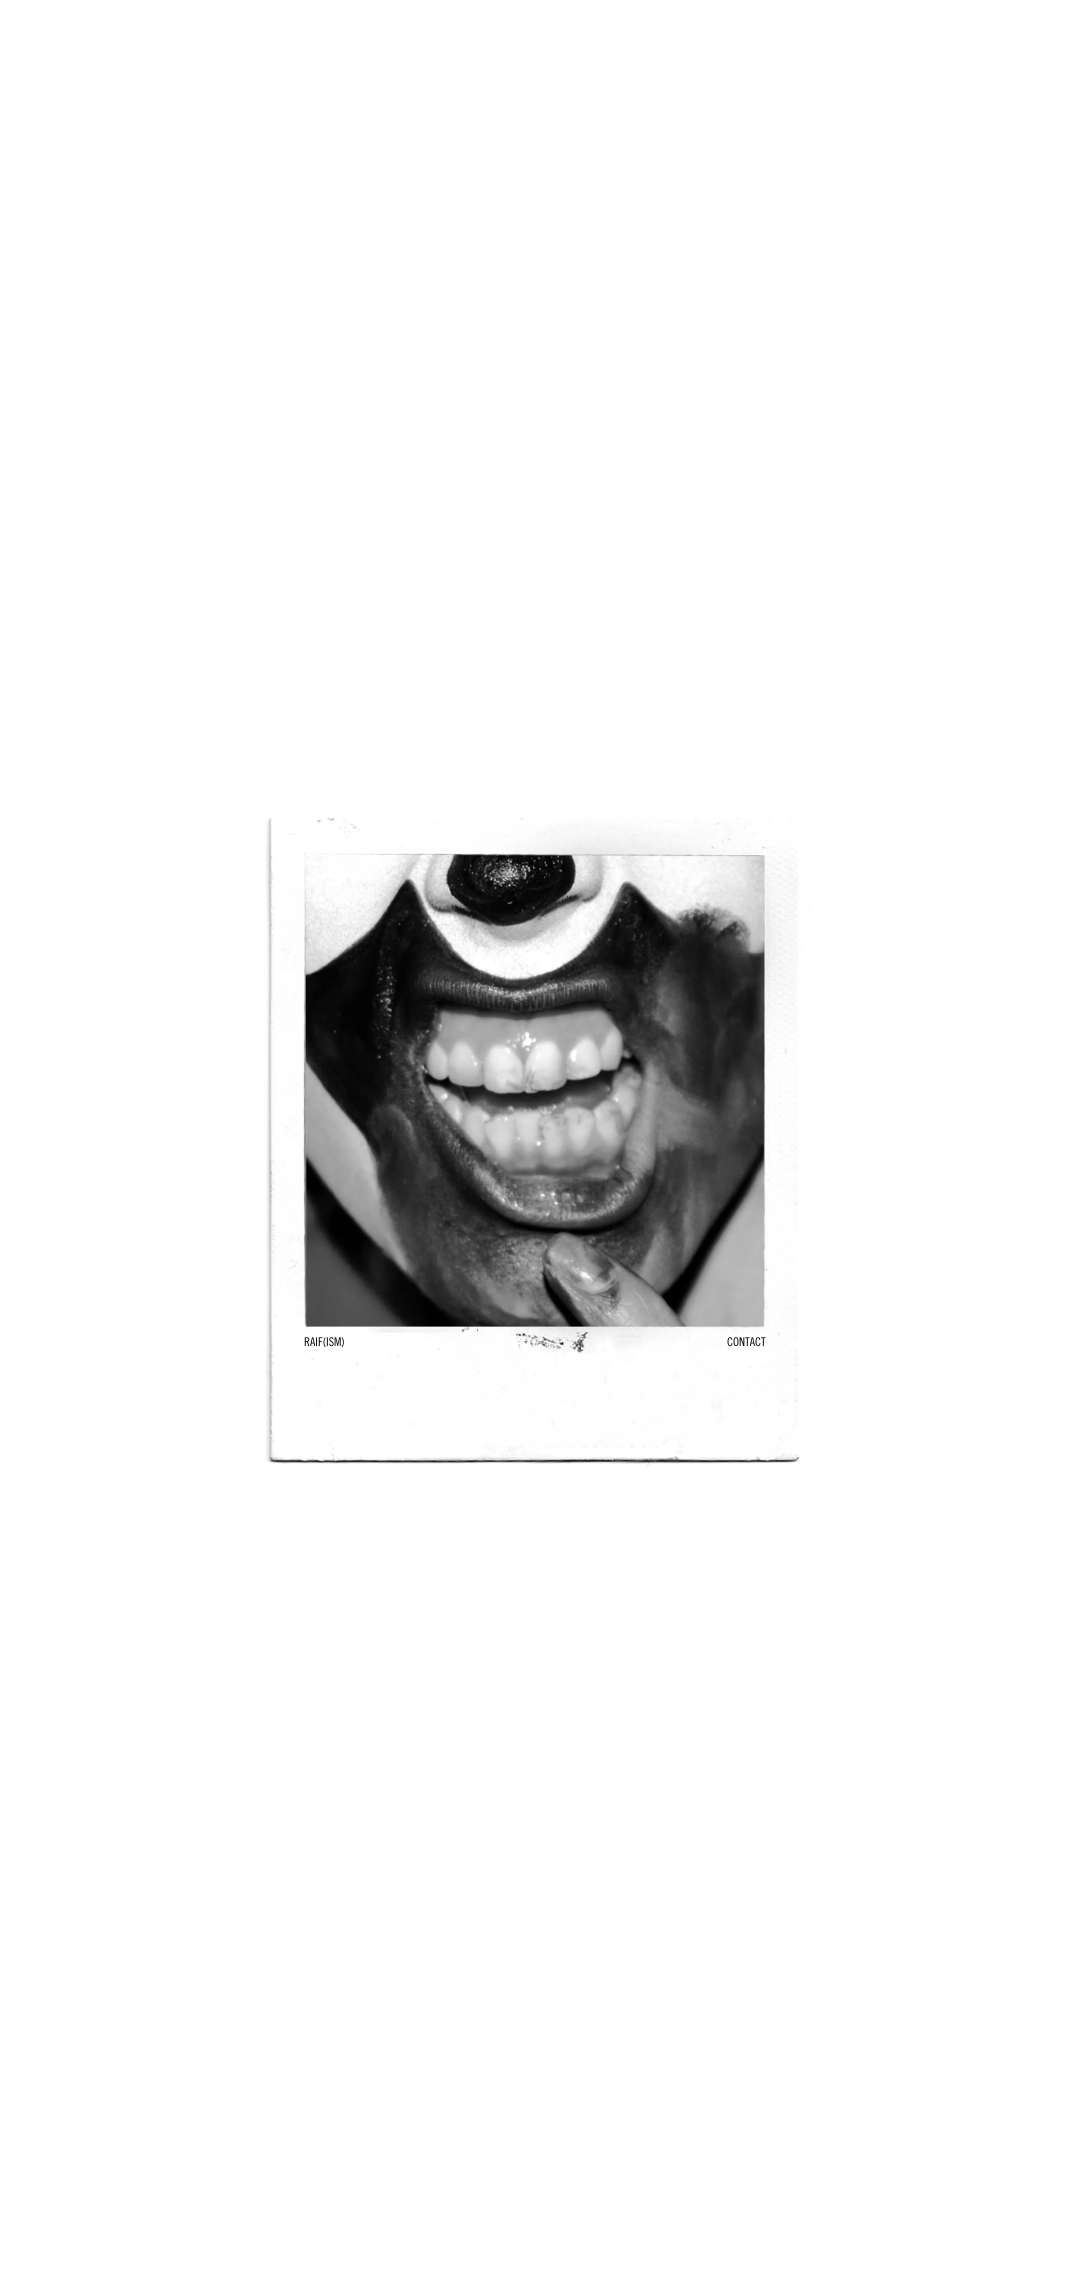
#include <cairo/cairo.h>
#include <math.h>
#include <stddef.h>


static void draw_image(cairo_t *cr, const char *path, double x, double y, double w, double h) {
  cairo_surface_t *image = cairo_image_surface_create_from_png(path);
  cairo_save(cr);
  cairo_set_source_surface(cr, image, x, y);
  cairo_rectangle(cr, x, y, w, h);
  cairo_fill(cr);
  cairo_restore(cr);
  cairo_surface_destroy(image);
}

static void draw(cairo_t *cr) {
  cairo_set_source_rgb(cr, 1, 1, 1);
  cairo_paint(cr);
  draw_image(cr, "images/1.png", 265, 817, 545, 650);
  cairo_select_font_face(cr, "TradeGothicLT", CAIRO_FONT_SLANT_NORMAL, CAIRO_FONT_WEIGHT_NORMAL);
  cairo_set_font_size(cr, 12);
  cairo_set_source_rgb(cr, 0, 0, 0);
  cairo_move_to(cr, 304, 1346);
  cairo_show_text(cr, "RAIF(ISM)");
  cairo_move_to(cr, 727, 1346);
  cairo_show_text(cr, "CONTACT");
}

int main(void) {
  cairo_surface_t *surface = cairo_image_surface_create(CAIRO_FORMAT_RGB24, 1070, 2282);
  cairo_t *cr = cairo_create(surface);
  cairo_font_options_t *options = cairo_font_options_create();
  cairo_font_options_set_hint_metrics(options, CAIRO_HINT_METRICS_OFF);
  cairo_font_options_set_hint_style(options, CAIRO_HINT_STYLE_NONE);
  cairo_set_font_options(cr, options);
  cairo_set_miter_limit(cr, 4);
  draw(cr);
  cairo_surface_write_to_png(surface, "out.png");
  cairo_font_options_destroy(options);
  cairo_destroy(cr);
  cairo_surface_destroy(surface);
  return 0;
}
